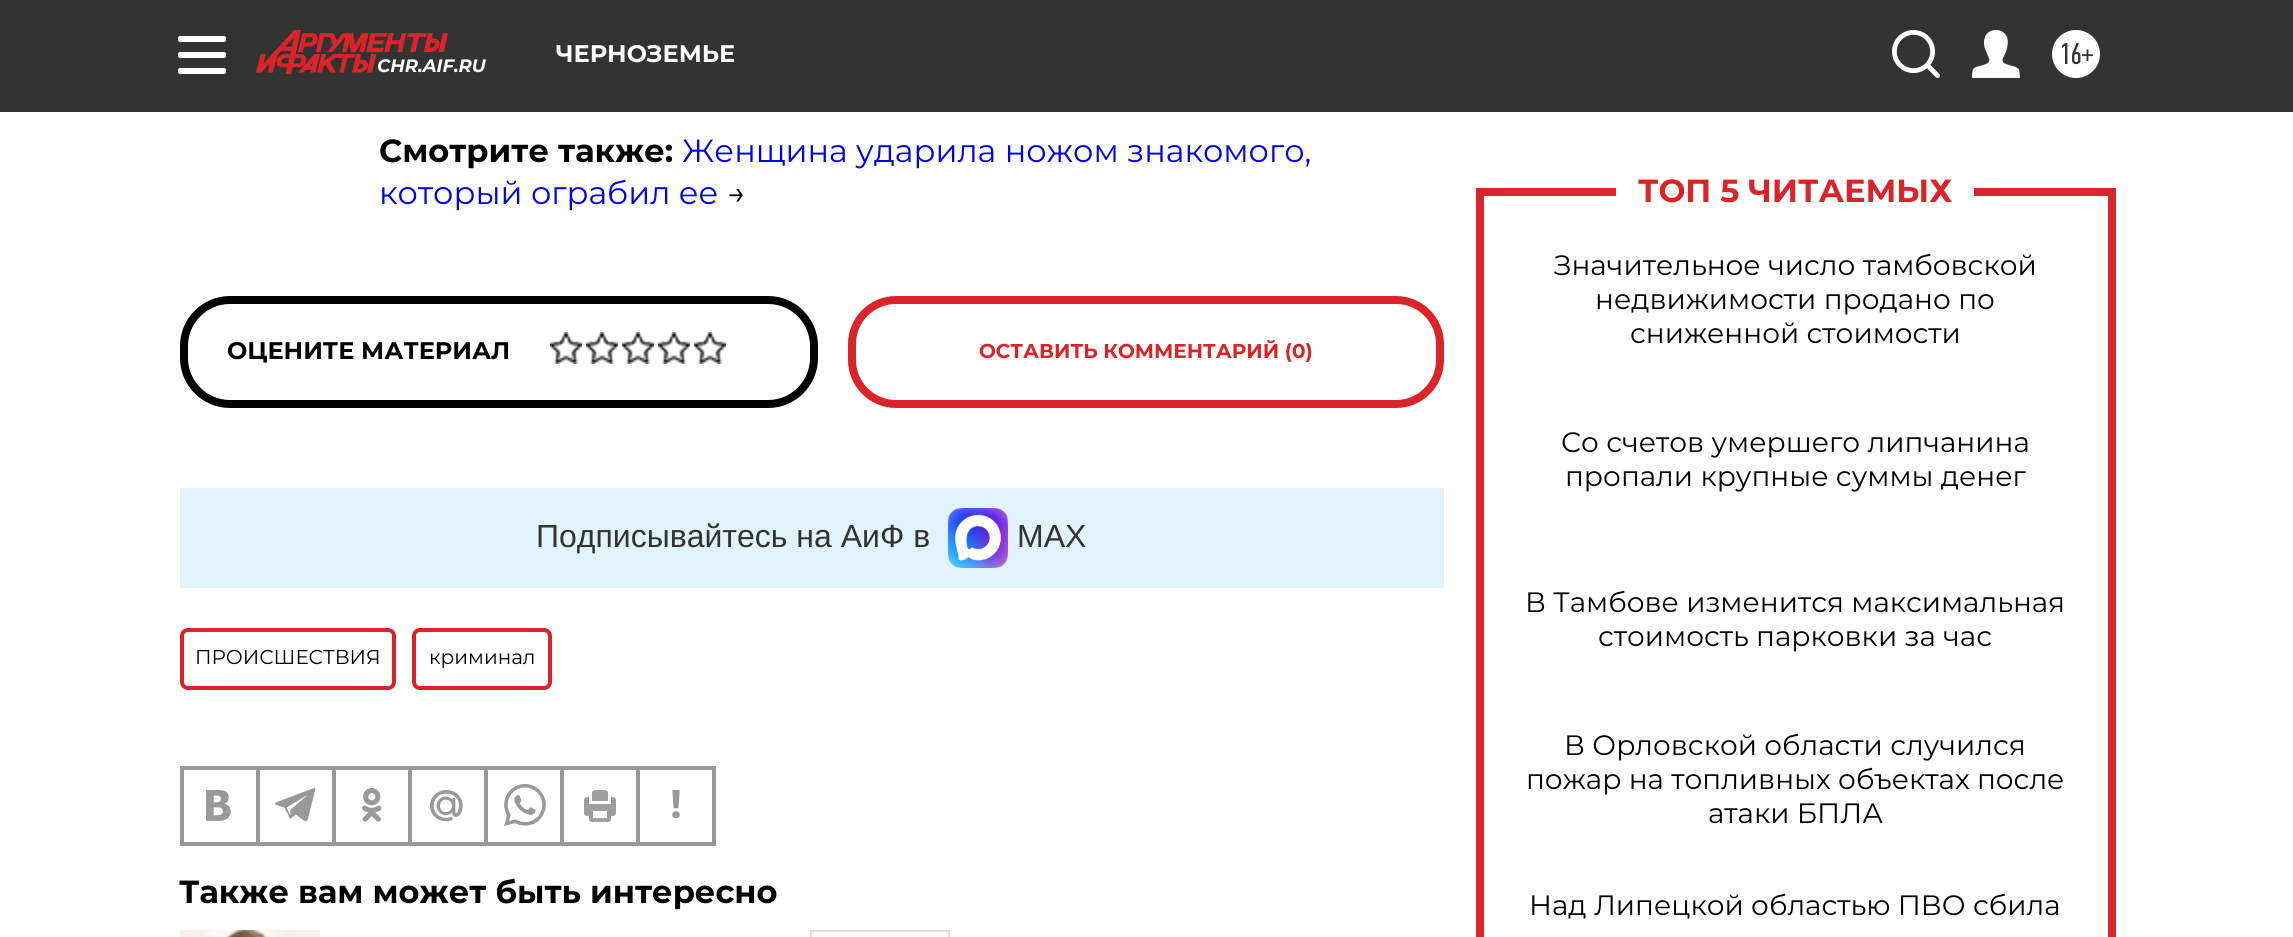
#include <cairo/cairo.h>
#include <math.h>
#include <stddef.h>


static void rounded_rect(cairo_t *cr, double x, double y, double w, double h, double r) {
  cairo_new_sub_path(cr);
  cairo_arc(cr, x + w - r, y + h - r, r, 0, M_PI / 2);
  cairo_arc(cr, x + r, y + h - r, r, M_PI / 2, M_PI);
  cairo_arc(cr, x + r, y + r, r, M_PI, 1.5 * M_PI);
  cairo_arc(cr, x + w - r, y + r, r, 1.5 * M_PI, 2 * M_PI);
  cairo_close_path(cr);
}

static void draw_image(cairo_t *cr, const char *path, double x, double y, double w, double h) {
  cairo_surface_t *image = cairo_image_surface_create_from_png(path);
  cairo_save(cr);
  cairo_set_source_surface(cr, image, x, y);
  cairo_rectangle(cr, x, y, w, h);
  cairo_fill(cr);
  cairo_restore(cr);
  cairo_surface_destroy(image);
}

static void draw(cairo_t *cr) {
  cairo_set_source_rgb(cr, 1, 1, 1);
  cairo_paint(cr);
  cairo_set_source_rgb(cr, 51 / 255.0, 51 / 255.0, 51 / 255.0);
  cairo_rectangle(cr, 0, 0, 2293, 112);
  cairo_fill(cr);
  cairo_set_source_rgb(cr, 1, 1, 1);
  rounded_rect(cr, 178, 36, 48, 6, 2);
  cairo_fill(cr);
  rounded_rect(cr, 178, 52, 48, 6, 2);
  cairo_fill(cr);
  rounded_rect(cr, 178, 68, 48, 6, 2);
  cairo_fill(cr);
  draw_image(cr, "images/1.png", 1892, 30, 48, 48);
  draw_image(cr, "images/2.png", 1972, 30, 48, 48);
  cairo_arc(cr, 2076, 54, 24, 0, 2 * M_PI);
  cairo_fill(cr);
  draw_image(cr, "images/3.png", 256, 30, 192, 44);
  rounded_rect(cr, 184, 300, 630, 104, 46);
  cairo_set_source_rgb(cr, 0, 0, 0);
  cairo_set_line_width(cr, 8);
  cairo_stroke(cr);
  draw_image(cr, "images/4.png", 550, 332, 32, 32);
  draw_image(cr, "images/4.png", 586, 332, 32, 32);
  draw_image(cr, "images/4.png", 622, 332, 32, 32);
  draw_image(cr, "images/4.png", 658, 332, 32, 32);
  draw_image(cr, "images/4.png", 694, 332, 32, 32);
  rounded_rect(cr, 852, 300, 588, 104, 44);
  cairo_set_source_rgb(cr, 218 / 255.0, 36 / 255.0, 41 / 255.0);
  cairo_stroke(cr);
  cairo_set_source_rgb(cr, 225 / 255.0, 243 / 255.0, 252 / 255.0);
  cairo_rectangle(cr, 180, 488, 1264, 100);
  cairo_fill(cr);
  draw_image(cr, "images/5.png", 948, 508, 60, 60);
  rounded_rect(cr, 182, 630, 212, 58, 6);
  cairo_set_source_rgb(cr, 218 / 255.0, 36 / 255.0, 41 / 255.0);
  cairo_set_line_width(cr, 4);
  cairo_stroke(cr);
  rounded_rect(cr, 414, 630, 136, 58, 6);
  cairo_stroke(cr);
  cairo_rectangle(cr, 181, 767, 534, 78);
  cairo_set_source_rgb(cr, 153 / 255.0, 153 / 255.0, 153 / 255.0);
  cairo_set_line_width(cr, 2);
  cairo_stroke(cr);
  cairo_rectangle(cr, 183, 769, 74, 74);
  cairo_stroke(cr);
  draw_image(cr, "images/6.png", 206, 790, 25, 31);
  cairo_rectangle(cr, 259, 769, 74, 74);
  cairo_stroke(cr);
  draw_image(cr, "images/7.png", 274, 788, 42, 34);
  cairo_rectangle(cr, 335, 769, 74, 74);
  cairo_stroke(cr);
  draw_image(cr, "images/8.png", 362, 788, 20, 34);
  cairo_rectangle(cr, 411, 769, 74, 74);
  cairo_stroke(cr);
  draw_image(cr, "images/9.png", 430, 790, 33, 32);
  cairo_rectangle(cr, 487, 769, 74, 74);
  cairo_stroke(cr);
  draw_image(cr, "images/10.png", 504, 784, 42, 42);
  cairo_rectangle(cr, 563, 769, 74, 74);
  cairo_stroke(cr);
  draw_image(cr, "images/11.png", 584, 790, 32, 32);
  cairo_rectangle(cr, 639, 769, 74, 74);
  cairo_stroke(cr);
  draw_image(cr, "images/12.png", 672, 790, 8, 29);
  draw_image(cr, "images/13.png", 180, 930, 140, 7);
  draw_image(cr, "images/14.png", 810, 930, 140, 7);
  cairo_set_source_rgb(cr, 218 / 255.0, 36 / 255.0, 41 / 255.0);
  cairo_rectangle(cr, 1476, 188, 8, 749);
  cairo_fill(cr);
  cairo_rectangle(cr, 1476, 188, 140, 8);
  cairo_fill(cr);
  cairo_rectangle(cr, 2108, 188, 8, 749);
  cairo_fill(cr);
  cairo_rectangle(cr, 1974, 188, 142, 8);
  cairo_fill(cr);
  cairo_select_font_face(cr, "Montserrat", CAIRO_FONT_SLANT_NORMAL, CAIRO_FONT_WEIGHT_BOLD);
  cairo_set_font_size(cr, 24);
  cairo_set_source_rgb(cr, 1, 1, 1);
  cairo_move_to(cr, 556, 62);
  cairo_show_text(cr, "ЧЕРНОЗЕМЬЕ");
  cairo_select_font_face(cr, "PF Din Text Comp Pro", CAIRO_FONT_SLANT_NORMAL, CAIRO_FONT_WEIGHT_NORMAL);
  cairo_set_font_size(cr, 30);
  cairo_set_source_rgb(cr, 51 / 255.0, 51 / 255.0, 51 / 255.0);
  cairo_move_to(cr, 2059, 64);
  cairo_show_text(cr, "16+");
  cairo_select_font_face(cr, "Montserrat", CAIRO_FONT_SLANT_ITALIC, CAIRO_FONT_WEIGHT_BOLD);
  cairo_set_font_size(cr, 18);
  cairo_set_source_rgb(cr, 1, 1, 1);
  cairo_move_to(cr, 377, 72);
  cairo_show_text(cr, "CHR.AIF.RU");
  cairo_select_font_face(cr, "Montserrat", CAIRO_FONT_SLANT_NORMAL, CAIRO_FONT_WEIGHT_BOLD);
  cairo_set_font_size(cr, 32);
  cairo_set_source_rgb(cr, 0, 0, 0);
  cairo_move_to(cr, 379, 162);
  cairo_show_text(cr, "Смотрите также:");
  cairo_select_font_face(cr, "Montserrat", CAIRO_FONT_SLANT_NORMAL, CAIRO_FONT_WEIGHT_NORMAL);
  cairo_set_source_rgb(cr, 0, 0, 238 / 255.0);
  cairo_move_to(cr, 682, 162);
  cairo_show_text(cr, "Женщина ударила ножом знакомого,");
  cairo_move_to(cr, 379, 204);
  cairo_show_text(cr, "который ограбил ее");
  cairo_set_source_rgb(cr, 0, 0, 0);
  cairo_move_to(cr, 727, 204);
  cairo_show_text(cr, "→");
  cairo_select_font_face(cr, "Montserrat", CAIRO_FONT_SLANT_NORMAL, CAIRO_FONT_WEIGHT_BOLD);
  cairo_set_font_size(cr, 24);
  cairo_move_to(cr, 227, 359);
  cairo_show_text(cr, "ОЦЕНИТЕ МАТЕРИАЛ");
  cairo_set_font_size(cr, 20);
  cairo_set_source_rgb(cr, 218 / 255.0, 36 / 255.0, 41 / 255.0);
  cairo_move_to(cr, 979, 358);
  cairo_show_text(cr, "ОСТАВИТЬ КОММЕНТАРИЙ (0)");
  cairo_select_font_face(cr, "Liberation Sans", CAIRO_FONT_SLANT_NORMAL, CAIRO_FONT_WEIGHT_NORMAL);
  cairo_set_font_size(cr, 32);
  cairo_set_source_rgb(cr, 51 / 255.0, 51 / 255.0, 51 / 255.0);
  cairo_move_to(cr, 536, 547);
  cairo_show_text(cr, "Подписывайтесь на АиФ в");
  cairo_move_to(cr, 1017, 547);
  cairo_show_text(cr, "MAX");
  cairo_select_font_face(cr, "Montserrat", CAIRO_FONT_SLANT_NORMAL, CAIRO_FONT_WEIGHT_NORMAL);
  cairo_set_font_size(cr, 20);
  cairo_set_source_rgb(cr, 0, 0, 0);
  cairo_move_to(cr, 195, 664);
  cairo_show_text(cr, "ПРОИСШЕСТВИЯ");
  cairo_move_to(cr, 429, 664);
  cairo_show_text(cr, "криминал");
  cairo_select_font_face(cr, "Montserrat", CAIRO_FONT_SLANT_NORMAL, CAIRO_FONT_WEIGHT_BOLD);
  cairo_set_font_size(cr, 32);
  cairo_move_to(cr, 179, 903);
  cairo_show_text(cr, "Также вам может быть интересно");
  cairo_set_source_rgb(cr, 218 / 255.0, 36 / 255.0, 41 / 255.0);
  cairo_move_to(cr, 1638, 202);
  cairo_show_text(cr, "ТОП 5 ЧИТАЕМЫХ");
  cairo_select_font_face(cr, "Montserrat", CAIRO_FONT_SLANT_NORMAL, CAIRO_FONT_WEIGHT_NORMAL);
  cairo_set_font_size(cr, 28);
  cairo_set_source_rgb(cr, 0, 0, 0);
  cairo_move_to(cr, 1554, 275);
  cairo_show_text(cr, "Значительное число тамбовской");
  cairo_move_to(cr, 1595, 309);
  cairo_show_text(cr, "недвижимости продано по");
  cairo_move_to(cr, 1630, 343);
  cairo_show_text(cr, "сниженной стоимости");
  cairo_move_to(cr, 1561, 452);
  cairo_show_text(cr, "Со счетов умершего липчанина");
  cairo_move_to(cr, 1565, 486);
  cairo_show_text(cr, "пропали крупные суммы денег");
  cairo_move_to(cr, 1525, 612);
  cairo_show_text(cr, "В Тамбове изменится максимальная");
  cairo_move_to(cr, 1598, 646);
  cairo_show_text(cr, "стоимость парковки за час");
  cairo_move_to(cr, 1564, 755);
  cairo_show_text(cr, "В Орловской области случился");
  cairo_move_to(cr, 1526, 789);
  cairo_show_text(cr, "пожар на топливных объектах после");
  cairo_move_to(cr, 1708, 823);
  cairo_show_text(cr, "атаки БПЛА");
  cairo_move_to(cr, 1529, 915);
  cairo_show_text(cr, "Над Липецкой областью ПВО сбила");
}

int main(void) {
  cairo_surface_t *surface = cairo_image_surface_create(CAIRO_FORMAT_RGB24, 2293, 937);
  cairo_t *cr = cairo_create(surface);
  cairo_font_options_t *options = cairo_font_options_create();
  cairo_font_options_set_hint_metrics(options, CAIRO_HINT_METRICS_OFF);
  cairo_font_options_set_hint_style(options, CAIRO_HINT_STYLE_NONE);
  cairo_set_font_options(cr, options);
  cairo_set_miter_limit(cr, 4);
  draw(cr);
  cairo_surface_write_to_png(surface, "out.png");
  cairo_font_options_destroy(options);
  cairo_destroy(cr);
  cairo_surface_destroy(surface);
  return 0;
}
